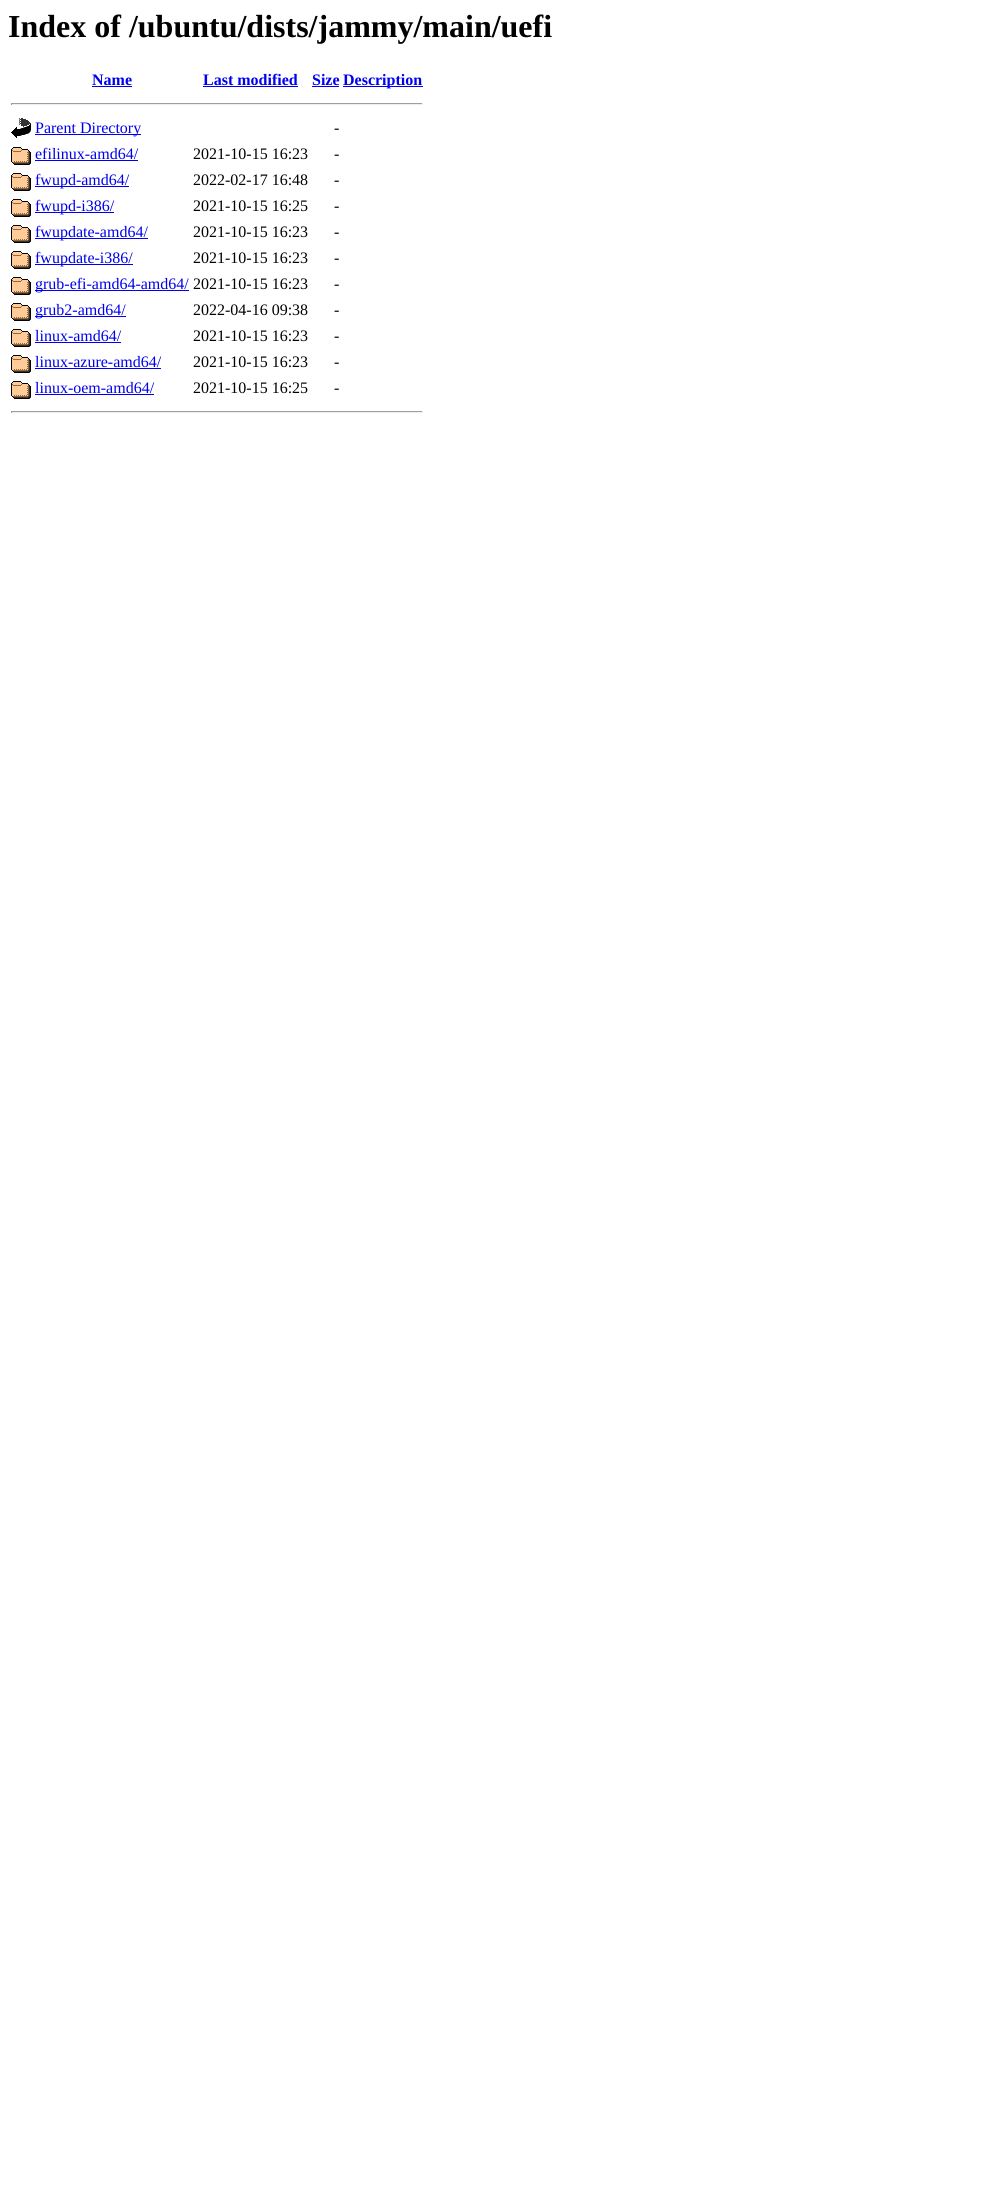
#include <cairo/cairo.h>
#include <math.h>
#include <stddef.h>


static void draw_image(cairo_t *cr, const char *path, double x, double y, double w, double h) {
  cairo_surface_t *image = cairo_image_surface_create_from_png(path);
  cairo_save(cr);
  cairo_set_source_surface(cr, image, x, y);
  cairo_rectangle(cr, x, y, w, h);
  cairo_fill(cr);
  cairo_restore(cr);
  cairo_surface_destroy(image);
}

static void draw(cairo_t *cr) {
  cairo_set_source_rgb(cr, 1, 1, 1);
  cairo_paint(cr);
  cairo_set_source_rgb(cr, 0, 0, 238 / 255.0);
  cairo_rectangle(cr, 92, 86, 40, 1);
  cairo_fill(cr);
  cairo_rectangle(cr, 203, 86, 95, 1);
  cairo_fill(cr);
  cairo_rectangle(cr, 312, 86, 27, 1);
  cairo_fill(cr);
  cairo_rectangle(cr, 343, 86, 80, 1);
  cairo_fill(cr);
  cairo_set_source_rgb(cr, 159 / 255.0, 159 / 255.0, 159 / 255.0);
  cairo_rectangle(cr, 11, 103, 412, 1);
  cairo_fill(cr);
  cairo_set_source_rgb(cr, 238 / 255.0, 238 / 255.0, 238 / 255.0);
  cairo_rectangle(cr, 422, 103, 1, 2);
  cairo_fill(cr);
  cairo_rectangle(cr, 11, 104, 412, 1);
  cairo_fill(cr);
  cairo_set_source_rgb(cr, 159 / 255.0, 159 / 255.0, 159 / 255.0);
  cairo_rectangle(cr, 11, 103, 1, 2);
  cairo_fill(cr);
  draw_image(cr, "images/1.png", 11, 118, 20, 20);
  cairo_set_source_rgb(cr, 0, 0, 238 / 255.0);
  cairo_rectangle(cr, 35, 134, 106, 1);
  cairo_fill(cr);
  draw_image(cr, "images/2.png", 11, 147, 20, 18);
  cairo_rectangle(cr, 35, 160, 103, 1);
  cairo_fill(cr);
  draw_image(cr, "images/2.png", 11, 173, 20, 18);
  cairo_rectangle(cr, 35, 186, 94, 1);
  cairo_fill(cr);
  draw_image(cr, "images/2.png", 11, 199, 20, 18);
  cairo_rectangle(cr, 35, 212, 79, 1);
  cairo_fill(cr);
  draw_image(cr, "images/2.png", 11, 225, 20, 18);
  cairo_rectangle(cr, 35, 238, 113, 1);
  cairo_fill(cr);
  draw_image(cr, "images/2.png", 11, 251, 20, 18);
  cairo_rectangle(cr, 35, 264, 98, 1);
  cairo_fill(cr);
  draw_image(cr, "images/2.png", 11, 277, 20, 18);
  cairo_rectangle(cr, 35, 290, 154, 1);
  cairo_fill(cr);
  draw_image(cr, "images/2.png", 11, 303, 20, 18);
  cairo_rectangle(cr, 35, 316, 91, 1);
  cairo_fill(cr);
  draw_image(cr, "images/2.png", 11, 329, 20, 18);
  cairo_rectangle(cr, 35, 342, 86, 1);
  cairo_fill(cr);
  draw_image(cr, "images/2.png", 11, 355, 20, 18);
  cairo_rectangle(cr, 35, 368, 126, 1);
  cairo_fill(cr);
  draw_image(cr, "images/2.png", 11, 381, 20, 18);
  cairo_rectangle(cr, 35, 394, 119, 1);
  cairo_fill(cr);
  cairo_set_source_rgb(cr, 159 / 255.0, 159 / 255.0, 159 / 255.0);
  cairo_rectangle(cr, 11, 411, 412, 1);
  cairo_fill(cr);
  cairo_set_source_rgb(cr, 238 / 255.0, 238 / 255.0, 238 / 255.0);
  cairo_rectangle(cr, 422, 411, 1, 2);
  cairo_fill(cr);
  cairo_rectangle(cr, 11, 412, 412, 1);
  cairo_fill(cr);
  cairo_set_source_rgb(cr, 159 / 255.0, 159 / 255.0, 159 / 255.0);
  cairo_rectangle(cr, 11, 411, 1, 2);
  cairo_fill(cr);
  cairo_select_font_face(cr, "Liberation Serif", CAIRO_FONT_SLANT_NORMAL, CAIRO_FONT_WEIGHT_BOLD);
  cairo_set_font_size(cr, 32);
  cairo_set_source_rgb(cr, 0, 0, 0);
  cairo_move_to(cr, 8, 37);
  cairo_show_text(cr, "Index of /ubuntu/dists/jammy/main/uefi");
  cairo_set_font_size(cr, 16);
  cairo_set_source_rgb(cr, 0, 0, 238 / 255.0);
  cairo_move_to(cr, 92, 85);
  cairo_show_text(cr, "Name");
  cairo_move_to(cr, 203, 85);
  cairo_show_text(cr, "Last modified");
  cairo_move_to(cr, 312, 85);
  cairo_show_text(cr, "Size");
  cairo_move_to(cr, 343, 85);
  cairo_show_text(cr, "Description");
  cairo_select_font_face(cr, "Liberation Serif", CAIRO_FONT_SLANT_NORMAL, CAIRO_FONT_WEIGHT_NORMAL);
  cairo_move_to(cr, 35, 133);
  cairo_show_text(cr, "Parent Directory");
  cairo_set_source_rgb(cr, 0, 0, 0);
  cairo_move_to(cr, 334, 133);
  cairo_show_text(cr, "-");
  cairo_set_source_rgb(cr, 0, 0, 238 / 255.0);
  cairo_move_to(cr, 35, 159);
  cairo_show_text(cr, "efilinux-amd64/");
  cairo_set_source_rgb(cr, 0, 0, 0);
  cairo_move_to(cr, 193, 159);
  cairo_show_text(cr, "2021-10-15 16:23");
  cairo_move_to(cr, 334, 159);
  cairo_show_text(cr, "-");
  cairo_set_source_rgb(cr, 0, 0, 238 / 255.0);
  cairo_move_to(cr, 35, 185);
  cairo_show_text(cr, "fwupd-amd64/");
  cairo_set_source_rgb(cr, 0, 0, 0);
  cairo_move_to(cr, 193, 185);
  cairo_show_text(cr, "2022-02-17 16:48");
  cairo_move_to(cr, 334, 185);
  cairo_show_text(cr, "-");
  cairo_set_source_rgb(cr, 0, 0, 238 / 255.0);
  cairo_move_to(cr, 35, 211);
  cairo_show_text(cr, "fwupd-i386/");
  cairo_set_source_rgb(cr, 0, 0, 0);
  cairo_move_to(cr, 193, 211);
  cairo_show_text(cr, "2021-10-15 16:25");
  cairo_move_to(cr, 334, 211);
  cairo_show_text(cr, "-");
  cairo_set_source_rgb(cr, 0, 0, 238 / 255.0);
  cairo_move_to(cr, 35, 237);
  cairo_show_text(cr, "fwupdate-amd64/");
  cairo_set_source_rgb(cr, 0, 0, 0);
  cairo_move_to(cr, 193, 237);
  cairo_show_text(cr, "2021-10-15 16:23");
  cairo_move_to(cr, 334, 237);
  cairo_show_text(cr, "-");
  cairo_set_source_rgb(cr, 0, 0, 238 / 255.0);
  cairo_move_to(cr, 35, 263);
  cairo_show_text(cr, "fwupdate-i386/");
  cairo_set_source_rgb(cr, 0, 0, 0);
  cairo_move_to(cr, 193, 263);
  cairo_show_text(cr, "2021-10-15 16:23");
  cairo_move_to(cr, 334, 263);
  cairo_show_text(cr, "-");
  cairo_set_source_rgb(cr, 0, 0, 238 / 255.0);
  cairo_move_to(cr, 35, 289);
  cairo_show_text(cr, "grub-efi-amd64-amd64/");
  cairo_set_source_rgb(cr, 0, 0, 0);
  cairo_move_to(cr, 193, 289);
  cairo_show_text(cr, "2021-10-15 16:23");
  cairo_move_to(cr, 334, 289);
  cairo_show_text(cr, "-");
  cairo_set_source_rgb(cr, 0, 0, 238 / 255.0);
  cairo_move_to(cr, 35, 315);
  cairo_show_text(cr, "grub2-amd64/");
  cairo_set_source_rgb(cr, 0, 0, 0);
  cairo_move_to(cr, 193, 315);
  cairo_show_text(cr, "2022-04-16 09:38");
  cairo_move_to(cr, 334, 315);
  cairo_show_text(cr, "-");
  cairo_set_source_rgb(cr, 0, 0, 238 / 255.0);
  cairo_move_to(cr, 35, 341);
  cairo_show_text(cr, "linux-amd64/");
  cairo_set_source_rgb(cr, 0, 0, 0);
  cairo_move_to(cr, 193, 341);
  cairo_show_text(cr, "2021-10-15 16:23");
  cairo_move_to(cr, 334, 341);
  cairo_show_text(cr, "-");
  cairo_set_source_rgb(cr, 0, 0, 238 / 255.0);
  cairo_move_to(cr, 35, 367);
  cairo_show_text(cr, "linux-azure-amd64/");
  cairo_set_source_rgb(cr, 0, 0, 0);
  cairo_move_to(cr, 193, 367);
  cairo_show_text(cr, "2021-10-15 16:23");
  cairo_move_to(cr, 334, 367);
  cairo_show_text(cr, "-");
  cairo_set_source_rgb(cr, 0, 0, 238 / 255.0);
  cairo_move_to(cr, 35, 393);
  cairo_show_text(cr, "linux-oem-amd64/");
  cairo_set_source_rgb(cr, 0, 0, 0);
  cairo_move_to(cr, 193, 393);
  cairo_show_text(cr, "2021-10-15 16:25");
  cairo_move_to(cr, 334, 393);
  cairo_show_text(cr, "-");
}

int main(void) {
  cairo_surface_t *surface = cairo_image_surface_create(CAIRO_FORMAT_RGB24, 990, 2205);
  cairo_t *cr = cairo_create(surface);
  cairo_font_options_t *options = cairo_font_options_create();
  cairo_font_options_set_hint_metrics(options, CAIRO_HINT_METRICS_OFF);
  cairo_font_options_set_hint_style(options, CAIRO_HINT_STYLE_NONE);
  cairo_set_font_options(cr, options);
  cairo_set_miter_limit(cr, 4);
  draw(cr);
  cairo_surface_write_to_png(surface, "out.png");
  cairo_font_options_destroy(options);
  cairo_destroy(cr);
  cairo_surface_destroy(surface);
  return 0;
}
